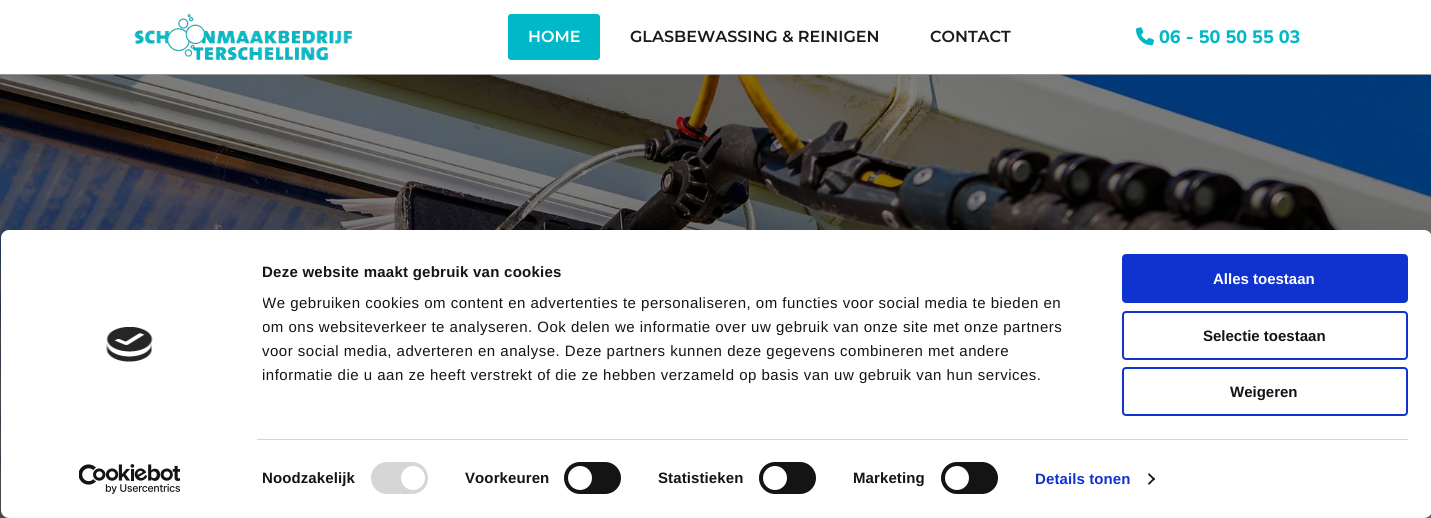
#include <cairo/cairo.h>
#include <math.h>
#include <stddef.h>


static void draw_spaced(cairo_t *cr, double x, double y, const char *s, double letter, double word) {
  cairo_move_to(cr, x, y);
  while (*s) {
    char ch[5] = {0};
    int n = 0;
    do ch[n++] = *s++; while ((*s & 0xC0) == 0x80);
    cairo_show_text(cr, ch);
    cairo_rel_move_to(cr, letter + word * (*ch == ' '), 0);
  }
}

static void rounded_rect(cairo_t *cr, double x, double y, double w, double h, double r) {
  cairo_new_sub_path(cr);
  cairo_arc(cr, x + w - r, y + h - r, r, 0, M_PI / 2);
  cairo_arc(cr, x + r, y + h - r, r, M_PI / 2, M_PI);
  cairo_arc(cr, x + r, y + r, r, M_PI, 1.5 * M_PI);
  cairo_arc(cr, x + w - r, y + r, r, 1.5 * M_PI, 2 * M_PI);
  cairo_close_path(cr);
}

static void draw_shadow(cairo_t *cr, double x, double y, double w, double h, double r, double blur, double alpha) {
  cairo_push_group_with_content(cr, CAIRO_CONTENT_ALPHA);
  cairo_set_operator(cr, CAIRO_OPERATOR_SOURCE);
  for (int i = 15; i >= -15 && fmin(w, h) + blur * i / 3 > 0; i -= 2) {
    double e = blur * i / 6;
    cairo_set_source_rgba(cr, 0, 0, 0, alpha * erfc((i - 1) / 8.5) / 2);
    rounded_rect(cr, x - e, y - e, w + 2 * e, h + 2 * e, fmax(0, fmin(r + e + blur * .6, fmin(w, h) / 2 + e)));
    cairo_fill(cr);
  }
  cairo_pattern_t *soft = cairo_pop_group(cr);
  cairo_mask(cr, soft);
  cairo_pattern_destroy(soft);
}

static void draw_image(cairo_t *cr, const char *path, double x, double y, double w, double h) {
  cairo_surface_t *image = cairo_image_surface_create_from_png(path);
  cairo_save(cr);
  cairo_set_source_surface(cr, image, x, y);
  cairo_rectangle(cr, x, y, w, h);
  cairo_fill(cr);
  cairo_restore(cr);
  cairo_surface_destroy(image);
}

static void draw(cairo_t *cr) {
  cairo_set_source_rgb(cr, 1, 1, 1);
  cairo_paint(cr);
  cairo_set_source_rgb(cr, 153 / 255.0, 153 / 255.0, 153 / 255.0);
  cairo_rectangle(cr, 0, 74, 1431, 1);
  cairo_fill(cr);
  draw_image(cr, "images/1.png", 134, 14, 219, 47);
  cairo_set_source_rgb(cr, 0, 184 / 255.0, 199 / 255.0);
  rounded_rect(cr, 508, 14, 92, 46, 3);
  cairo_fill(cr);
  draw_image(cr, "images/2.png", 1136, 27, 18, 19);
  draw_image(cr, "images/3.png", 0, 75, 1431, 443);
  cairo_set_source_rgb(cr, 0, 0, 0);
  draw_shadow(cr, 1, 260, 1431, 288, 8, 35, 0.3);
  cairo_set_source_rgb(cr, 1, 1, 1);
  rounded_rect(cr, 1, 230, 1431, 288, 8);
  cairo_fill(cr);
  draw_image(cr, "images/4.png", 106, 327, 47, 35);
  draw_image(cr, "images/5.png", 79, 464, 101, 30);
  cairo_set_source_rgb(cr, 214 / 255.0, 214 / 255.0, 214 / 255.0);
  cairo_rectangle(cr, 257, 439, 1151, 1);
  cairo_fill(cr);
  rounded_rect(cr, 371, 462, 57, 32, 16);
  cairo_fill(cr);
  cairo_set_source_rgb(cr, 1, 1, 1);
  cairo_arc(cr, 413, 478, 12, 0, 2 * M_PI);
  cairo_fill(cr);
  cairo_set_source_rgb(cr, 20 / 255.0, 20 / 255.0, 20 / 255.0);
  rounded_rect(cr, 564, 462, 57, 32, 16);
  cairo_fill(cr);
  cairo_set_source_rgb(cr, 1, 1, 1);
  cairo_arc(cr, 580, 478, 12, 0, 2 * M_PI);
  cairo_fill(cr);
  cairo_set_source_rgb(cr, 20 / 255.0, 20 / 255.0, 20 / 255.0);
  rounded_rect(cr, 759, 462, 57, 32, 16);
  cairo_fill(cr);
  cairo_set_source_rgb(cr, 1, 1, 1);
  cairo_arc(cr, 775, 478, 12, 0, 2 * M_PI);
  cairo_fill(cr);
  cairo_set_source_rgb(cr, 20 / 255.0, 20 / 255.0, 20 / 255.0);
  rounded_rect(cr, 941, 462, 57, 32, 16);
  cairo_fill(cr);
  cairo_set_source_rgb(cr, 1, 1, 1);
  cairo_arc(cr, 957, 478, 12, 0, 2 * M_PI);
  cairo_fill(cr);
  cairo_set_source_rgb(cr, 20 / 255.0, 20 / 255.0, 20 / 255.0);
  cairo_new_path(cr);
  cairo_move_to(cr, 1149, 473);
  cairo_line_to(cr, 1155, 479);
  cairo_line_to(cr, 1154, 480.5);
  cairo_line_to(cr, 1148, 474.5);
  cairo_close_path(cr);
  cairo_fill(cr);
  cairo_new_path(cr);
  cairo_move_to(cr, 1154, 477.5);
  cairo_line_to(cr, 1155, 479);
  cairo_line_to(cr, 1149, 485);
  cairo_line_to(cr, 1148, 483.5);
  cairo_close_path(cr);
  cairo_fill(cr);
  cairo_set_source_rgb(cr, 16 / 255.0, 50 / 255.0, 207 / 255.0);
  rounded_rect(cr, 1123, 255, 284, 47, 3);
  cairo_fill_preserve(cr);
  cairo_stroke(cr);
  rounded_rect(cr, 1123, 312, 284, 47, 3);
  cairo_stroke(cr);
  rounded_rect(cr, 1123, 368, 284, 47, 3);
  cairo_stroke(cr);
  cairo_select_font_face(cr, "Montserrat SemiBold", CAIRO_FONT_SLANT_NORMAL, CAIRO_FONT_WEIGHT_NORMAL);
  cairo_set_font_size(cr, 16);
  cairo_set_source_rgb(cr, 1, 1, 1);
  cairo_move_to(cr, 528, 42);
  cairo_show_text(cr, "HOME");
  cairo_set_source_rgb(cr, 26 / 255.0, 26 / 255.0, 26 / 255.0);
  cairo_move_to(cr, 630, 42);
  cairo_show_text(cr, "GLASBEWASSING & REINIGEN");
  cairo_move_to(cr, 930, 42);
  cairo_show_text(cr, "CONTACT");
  cairo_select_font_face(cr, "Mulish ExtraBold", CAIRO_FONT_SLANT_NORMAL, CAIRO_FONT_WEIGHT_NORMAL);
  cairo_set_font_size(cr, 18);
  cairo_set_source_rgb(cr, 0, 184 / 255.0, 199 / 255.0);
  cairo_move_to(cr, 1159, 43);
  cairo_show_text(cr, "06 - 50 50 55 03");
  cairo_select_font_face(cr, "Liberation Sans", CAIRO_FONT_SLANT_NORMAL, CAIRO_FONT_WEIGHT_BOLD);
  cairo_set_font_size(cr, 15);
  cairo_set_source_rgb(cr, 20 / 255.0, 20 / 255.0, 20 / 255.0);
  draw_spaced(cr, 262, 277, "Deze website maakt gebruik van cookies", 0.25, 0);
  cairo_save(cr);
  cairo_rectangle(cr, 263, 260, 830, 150);
  cairo_clip(cr);
  cairo_select_font_face(cr, "Liberation Sans", CAIRO_FONT_SLANT_NORMAL, CAIRO_FONT_WEIGHT_NORMAL);
  draw_spaced(cr, 262, 308, "We gebruiken cookies om content en advertenties te personaliseren, om functies voor social media te bieden en", 0.5, 0);
  draw_spaced(cr, 262, 332, "om ons websiteverkeer te analyseren. Ook delen we informatie over uw gebruik van onze site met onze partners", 0.5, 0);
  cairo_restore(cr);
  cairo_select_font_face(cr, "Liberation Sans", CAIRO_FONT_SLANT_NORMAL, CAIRO_FONT_WEIGHT_NORMAL);
  draw_spaced(cr, 262, 356, "voor social media, adverteren en analyse. Deze partners kunnen deze gegevens combineren met andere", 0.5, 0);
  draw_spaced(cr, 262, 380, "informatie die u aan ze heeft verstrekt of die ze hebben verzameld op basis van uw gebruik van hun services.", 0.5, 0);
  cairo_select_font_face(cr, "Liberation Sans", CAIRO_FONT_SLANT_NORMAL, CAIRO_FONT_WEIGHT_BOLD);
  draw_spaced(cr, 262, 483, "Noodzakelijk", 0.1, 0);
  draw_spaced(cr, 465, 483, "Voorkeuren", 0.1, 0);
  draw_spaced(cr, 658, 483, "Statistieken", 0.1, 0);
  draw_spaced(cr, 853, 483, "Marketing", 0.1, 0);
  cairo_set_source_rgb(cr, 16 / 255.0, 50 / 255.0, 207 / 255.0);
  draw_spaced(cr, 1035, 484, "Details tonen", 0.1, 0);
  cairo_set_source_rgb(cr, 1, 1, 1);
  cairo_move_to(cr, 1213, 284);
  cairo_show_text(cr, "Alles toestaan");
  cairo_set_source_rgb(cr, 20 / 255.0, 20 / 255.0, 20 / 255.0);
  cairo_move_to(cr, 1203, 341);
  cairo_show_text(cr, "Selectie toestaan");
  cairo_move_to(cr, 1230, 397);
  cairo_show_text(cr, "Weigeren");
}

int main(void) {
  cairo_surface_t *surface = cairo_image_surface_create(CAIRO_FORMAT_RGB24, 1431, 518);
  cairo_t *cr = cairo_create(surface);
  cairo_font_options_t *options = cairo_font_options_create();
  cairo_font_options_set_hint_metrics(options, CAIRO_HINT_METRICS_OFF);
  cairo_font_options_set_hint_style(options, CAIRO_HINT_STYLE_NONE);
  cairo_set_font_options(cr, options);
  cairo_set_miter_limit(cr, 4);
  draw(cr);
  cairo_surface_write_to_png(surface, "out.png");
  cairo_font_options_destroy(options);
  cairo_destroy(cr);
  cairo_surface_destroy(surface);
  return 0;
}
